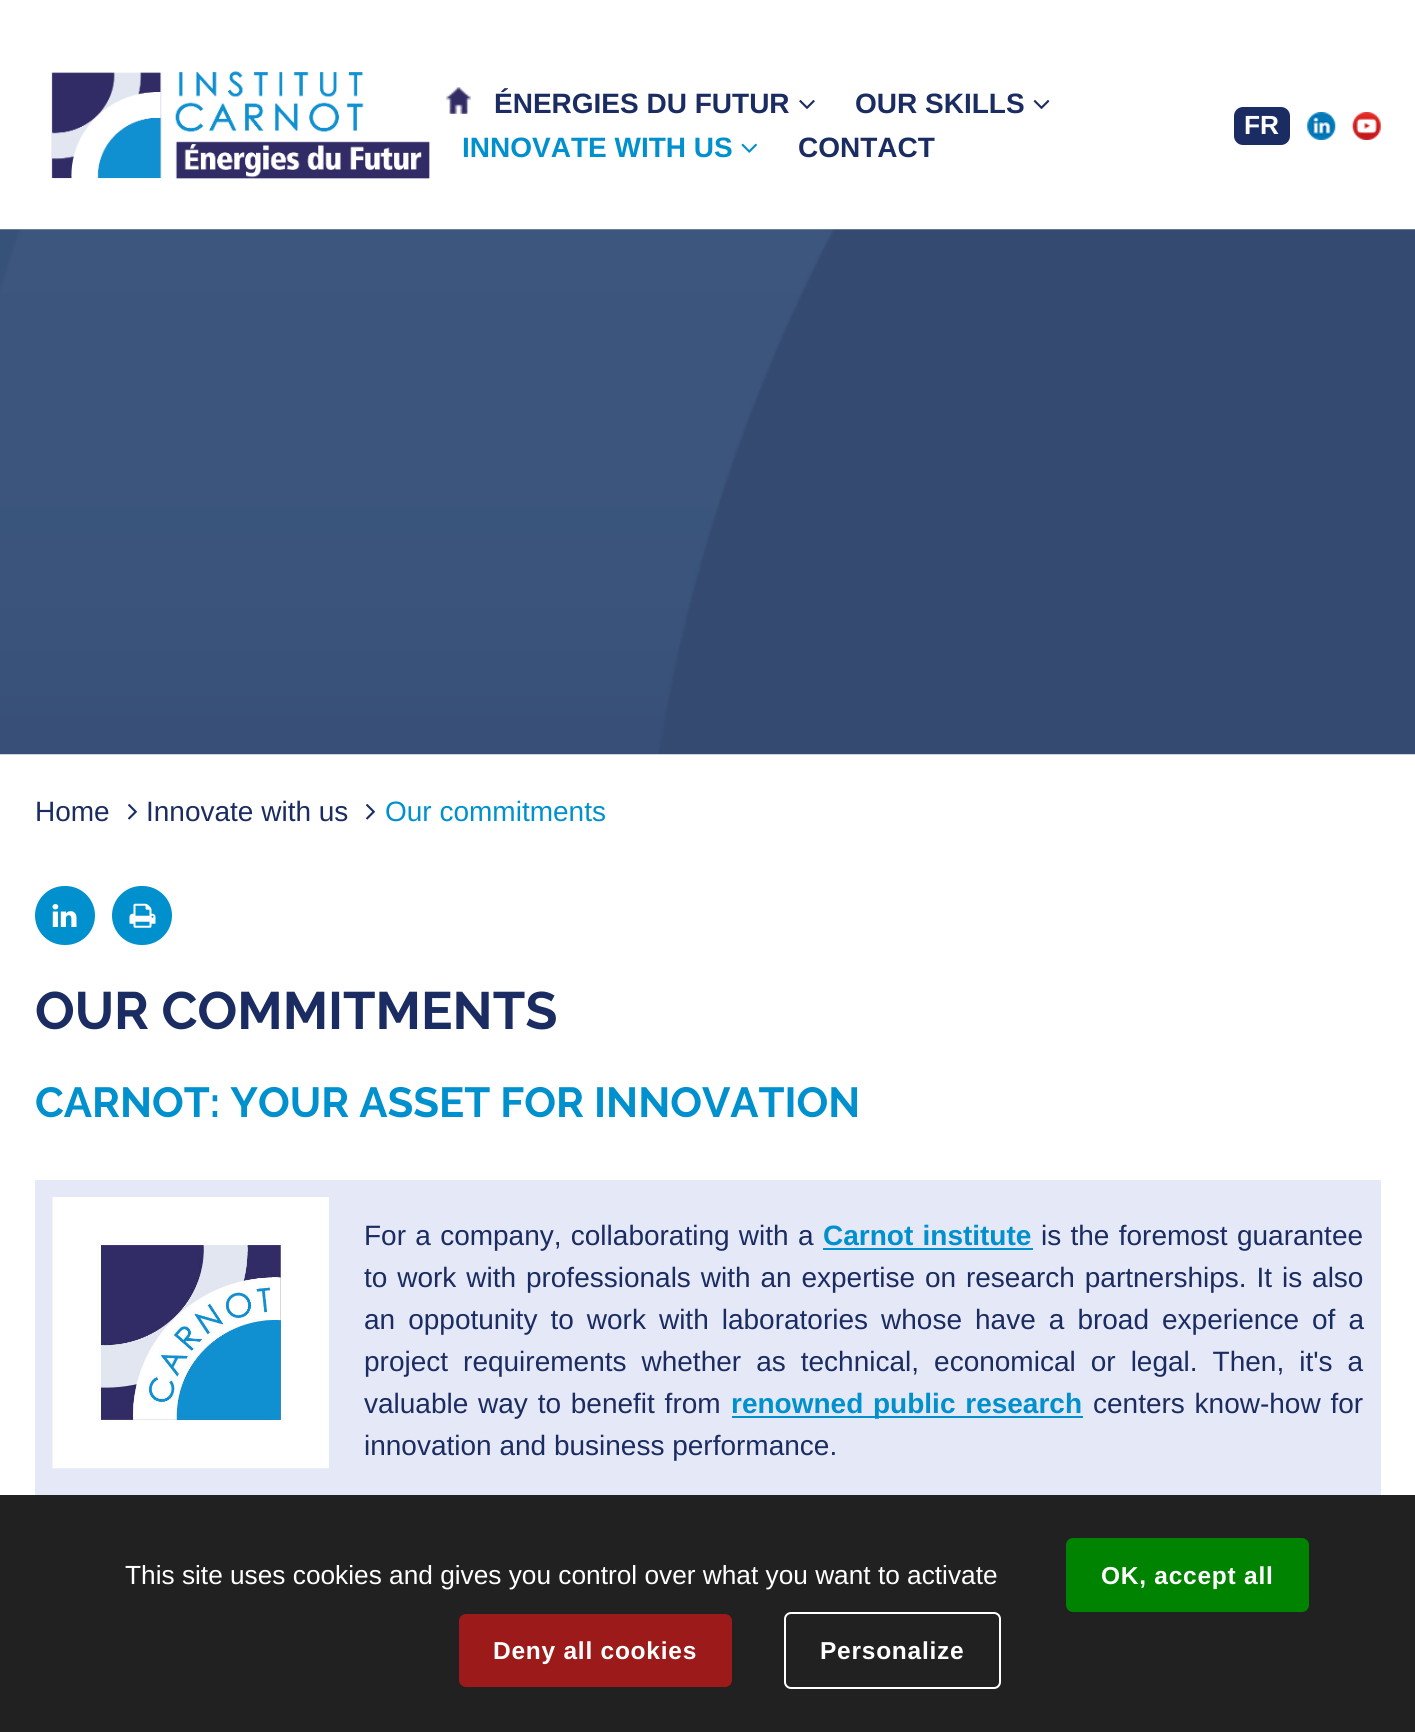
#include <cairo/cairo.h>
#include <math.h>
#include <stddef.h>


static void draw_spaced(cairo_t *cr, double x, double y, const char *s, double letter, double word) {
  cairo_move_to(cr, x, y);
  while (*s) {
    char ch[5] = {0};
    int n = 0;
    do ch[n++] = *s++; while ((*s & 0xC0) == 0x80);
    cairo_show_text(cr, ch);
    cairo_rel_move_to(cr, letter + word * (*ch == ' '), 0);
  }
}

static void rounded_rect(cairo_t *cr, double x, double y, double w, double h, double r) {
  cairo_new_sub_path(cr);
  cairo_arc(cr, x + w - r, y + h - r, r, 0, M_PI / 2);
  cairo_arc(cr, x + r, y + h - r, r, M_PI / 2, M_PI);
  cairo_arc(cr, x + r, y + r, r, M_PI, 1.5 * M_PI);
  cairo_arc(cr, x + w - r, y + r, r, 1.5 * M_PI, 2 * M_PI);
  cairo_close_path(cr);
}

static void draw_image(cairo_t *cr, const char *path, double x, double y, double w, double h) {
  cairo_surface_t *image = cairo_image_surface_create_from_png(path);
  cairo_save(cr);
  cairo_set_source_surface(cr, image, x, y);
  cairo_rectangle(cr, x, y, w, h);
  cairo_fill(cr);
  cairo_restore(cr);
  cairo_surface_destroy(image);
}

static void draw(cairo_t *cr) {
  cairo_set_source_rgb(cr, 1, 1, 1);
  cairo_paint(cr);
  draw_image(cr, "images/1.png", 51, 71, 379, 108);
  draw_image(cr, "images/2.png", 446, 87, 25, 27);
  draw_image(cr, "images/3.png", 799, 100, 16, 9);
  draw_image(cr, "images/4.png", 1033, 100, 17, 9);
  draw_image(cr, "images/5.png", 741, 143, 16, 10);
  cairo_set_source_rgb(cr, 26 / 255.0, 44 / 255.0, 97 / 255.0);
  rounded_rect(cr, 1234, 107, 56, 38, 9);
  cairo_fill(cr);
  draw_image(cr, "images/6.png", 1307, 112, 29, 28);
  draw_image(cr, "images/7.png", 1352, 112, 29, 28);
  draw_image(cr, "images/8.png", 0, 229, 1415, 526);
  draw_image(cr, "images/9.png", 128, 804, 9, 16);
  draw_image(cr, "images/9.png", 366, 804, 9, 16);
  cairo_set_source_rgb(cr, 0, 144 / 255.0, 205 / 255.0);
  rounded_rect(cr, 37, 888, 56, 55, 27.5);
  cairo_fill_preserve(cr);
  cairo_set_line_width(cr, 4);
  cairo_stroke(cr);
  draw_image(cr, "images/10.png", 52, 904, 25, 23);
  rounded_rect(cr, 114, 888, 56, 55, 27.5);
  cairo_fill_preserve(cr);
  cairo_stroke(cr);
  draw_image(cr, "images/11.png", 129, 903, 27, 25);
  cairo_set_source_rgb(cr, 229 / 255.0, 232 / 255.0, 246 / 255.0);
  cairo_rectangle(cr, 35, 1180, 1346, 315);
  cairo_fill(cr);
  draw_image(cr, "images/12.png", 52, 1197, 277, 272);
  cairo_set_source_rgb(cr, 0, 144 / 255.0, 205 / 255.0);
  cairo_rectangle(cr, 823, 1248, 210, 2);
  cairo_fill(cr);
  cairo_rectangle(cr, 732, 1416, 351, 2);
  cairo_fill(cr);
  cairo_set_source_rgb(cr, 33 / 255.0, 33 / 255.0, 33 / 255.0);
  cairo_rectangle(cr, 0, 1495, 1415, 237);
  cairo_fill(cr);
  cairo_set_source_rgb(cr, 0, 131 / 255.0, 0);
  rounded_rect(cr, 1066, 1538, 243, 74, 7);
  cairo_fill(cr);
  cairo_set_source_rgb(cr, 156 / 255.0, 26 / 255.0, 26 / 255.0);
  rounded_rect(cr, 459, 1614, 273, 73, 7);
  cairo_fill(cr);
  rounded_rect(cr, 785, 1613, 215, 75, 6);
  cairo_set_source_rgb(cr, 1, 1, 1);
  cairo_set_line_width(cr, 2);
  cairo_stroke(cr);
  cairo_select_font_face(cr, "Liberation Sans", CAIRO_FONT_SLANT_NORMAL, CAIRO_FONT_WEIGHT_BOLD);
  cairo_set_font_size(cr, 28);
  cairo_set_source_rgb(cr, 26 / 255.0, 44 / 255.0, 97 / 255.0);
  cairo_move_to(cr, 494, 113);
  cairo_show_text(cr, "ÉNERGIES DU FUTUR");
  cairo_move_to(cr, 855, 113);
  cairo_show_text(cr, "OUR SKILLS");
  cairo_set_source_rgb(cr, 0, 144 / 255.0, 205 / 255.0);
  cairo_move_to(cr, 462, 157);
  cairo_show_text(cr, "INNOVATE WITH US");
  cairo_set_source_rgb(cr, 26 / 255.0, 44 / 255.0, 97 / 255.0);
  cairo_move_to(cr, 798, 157);
  cairo_show_text(cr, "CONTACT");
  cairo_set_font_size(cr, 26.25);
  cairo_set_source_rgb(cr, 1, 1, 1);
  cairo_move_to(cr, 1244, 134);
  cairo_show_text(cr, "FR");
  cairo_select_font_face(cr, "Liberation Sans", CAIRO_FONT_SLANT_NORMAL, CAIRO_FONT_WEIGHT_NORMAL);
  cairo_set_font_size(cr, 28);
  cairo_set_source_rgb(cr, 26 / 255.0, 44 / 255.0, 97 / 255.0);
  cairo_move_to(cr, 35, 821);
  cairo_show_text(cr, "Home");
  cairo_move_to(cr, 146, 821);
  cairo_show_text(cr, "Innovate with us");
  cairo_set_source_rgb(cr, 0, 144 / 255.0, 205 / 255.0);
  cairo_move_to(cr, 385, 821);
  cairo_show_text(cr, "Our commitments");
  cairo_select_font_face(cr, "Raleway", CAIRO_FONT_SLANT_NORMAL, CAIRO_FONT_WEIGHT_BOLD);
  cairo_set_font_size(cr, 52.5);
  cairo_set_source_rgb(cr, 26 / 255.0, 44 / 255.0, 97 / 255.0);
  cairo_move_to(cr, 35, 1029);
  cairo_show_text(cr, "OUR COMMITMENTS");
  cairo_set_font_size(cr, 42);
  cairo_set_source_rgb(cr, 0, 144 / 255.0, 205 / 255.0);
  cairo_move_to(cr, 35, 1117);
  cairo_show_text(cr, "CARNOT: YOUR ASSET FOR INNOVATION");
  cairo_select_font_face(cr, "Liberation Sans", CAIRO_FONT_SLANT_NORMAL, CAIRO_FONT_WEIGHT_NORMAL);
  cairo_set_font_size(cr, 28);
  cairo_set_source_rgb(cr, 26 / 255.0, 44 / 255.0, 97 / 255.0);
  draw_spaced(cr, 364, 1245, "For a company, collaborating with a", 0, 1.5);
  cairo_select_font_face(cr, "Liberation Sans", CAIRO_FONT_SLANT_NORMAL, CAIRO_FONT_WEIGHT_BOLD);
  cairo_set_source_rgb(cr, 0, 144 / 255.0, 205 / 255.0);
  draw_spaced(cr, 823, 1245, "Carnot institute", 0, 1.5);
  cairo_select_font_face(cr, "Liberation Sans", CAIRO_FONT_SLANT_NORMAL, CAIRO_FONT_WEIGHT_NORMAL);
  cairo_set_source_rgb(cr, 26 / 255.0, 44 / 255.0, 97 / 255.0);
  draw_spaced(cr, 1041, 1245, "is the foremost guarantee", 0, 1.5);
  draw_spaced(cr, 364, 1287, "to work with professionals with an expertise on research partnerships. It is also", 0, 2.1);
  draw_spaced(cr, 364, 1329, "an oppotunity to work with laboratories whose have a broad experience of a", 0, 5.25);
  draw_spaced(cr, 364, 1371, "project requirements whether as technical, economical or legal. Then, it's a", 0, 7.25);
  draw_spaced(cr, 364, 1413, "valuable way to benefit from", 0, 2);
  cairo_select_font_face(cr, "Liberation Sans", CAIRO_FONT_SLANT_NORMAL, CAIRO_FONT_WEIGHT_BOLD);
  cairo_set_source_rgb(cr, 0, 144 / 255.0, 205 / 255.0);
  draw_spaced(cr, 731, 1413, "renowned public research", 0, 2);
  cairo_select_font_face(cr, "Liberation Sans", CAIRO_FONT_SLANT_NORMAL, CAIRO_FONT_WEIGHT_NORMAL);
  cairo_set_source_rgb(cr, 26 / 255.0, 44 / 255.0, 97 / 255.0);
  draw_spaced(cr, 1093, 1413, "centers know-how for", 0, 2);
  cairo_move_to(cr, 364, 1455);
  cairo_show_text(cr, "innovation and business performance.");
  cairo_set_font_size(cr, 26.25);
  cairo_set_source_rgb(cr, 1, 1, 1);
  cairo_move_to(cr, 125, 1584);
  cairo_show_text(cr, "This site uses cookies and gives you control over what you want to activate");
  cairo_select_font_face(cr, "Liberation Sans", CAIRO_FONT_SLANT_NORMAL, CAIRO_FONT_WEIGHT_BOLD);
  cairo_set_font_size(cr, 24.5);
  draw_spaced(cr, 1101, 1584, "OK, accept all", 0.75, 0);
  draw_spaced(cr, 493, 1659, "Deny all cookies", 0.75, 0);
  draw_spaced(cr, 820, 1659, "Personalize", 0.75, 0);
}

int main(void) {
  cairo_surface_t *surface = cairo_image_surface_create(CAIRO_FORMAT_RGB24, 1415, 1732);
  cairo_t *cr = cairo_create(surface);
  cairo_font_options_t *options = cairo_font_options_create();
  cairo_font_options_set_hint_metrics(options, CAIRO_HINT_METRICS_OFF);
  cairo_font_options_set_hint_style(options, CAIRO_HINT_STYLE_NONE);
  cairo_set_font_options(cr, options);
  cairo_set_miter_limit(cr, 4);
  draw(cr);
  cairo_surface_write_to_png(surface, "out.png");
  cairo_font_options_destroy(options);
  cairo_destroy(cr);
  cairo_surface_destroy(surface);
  return 0;
}
